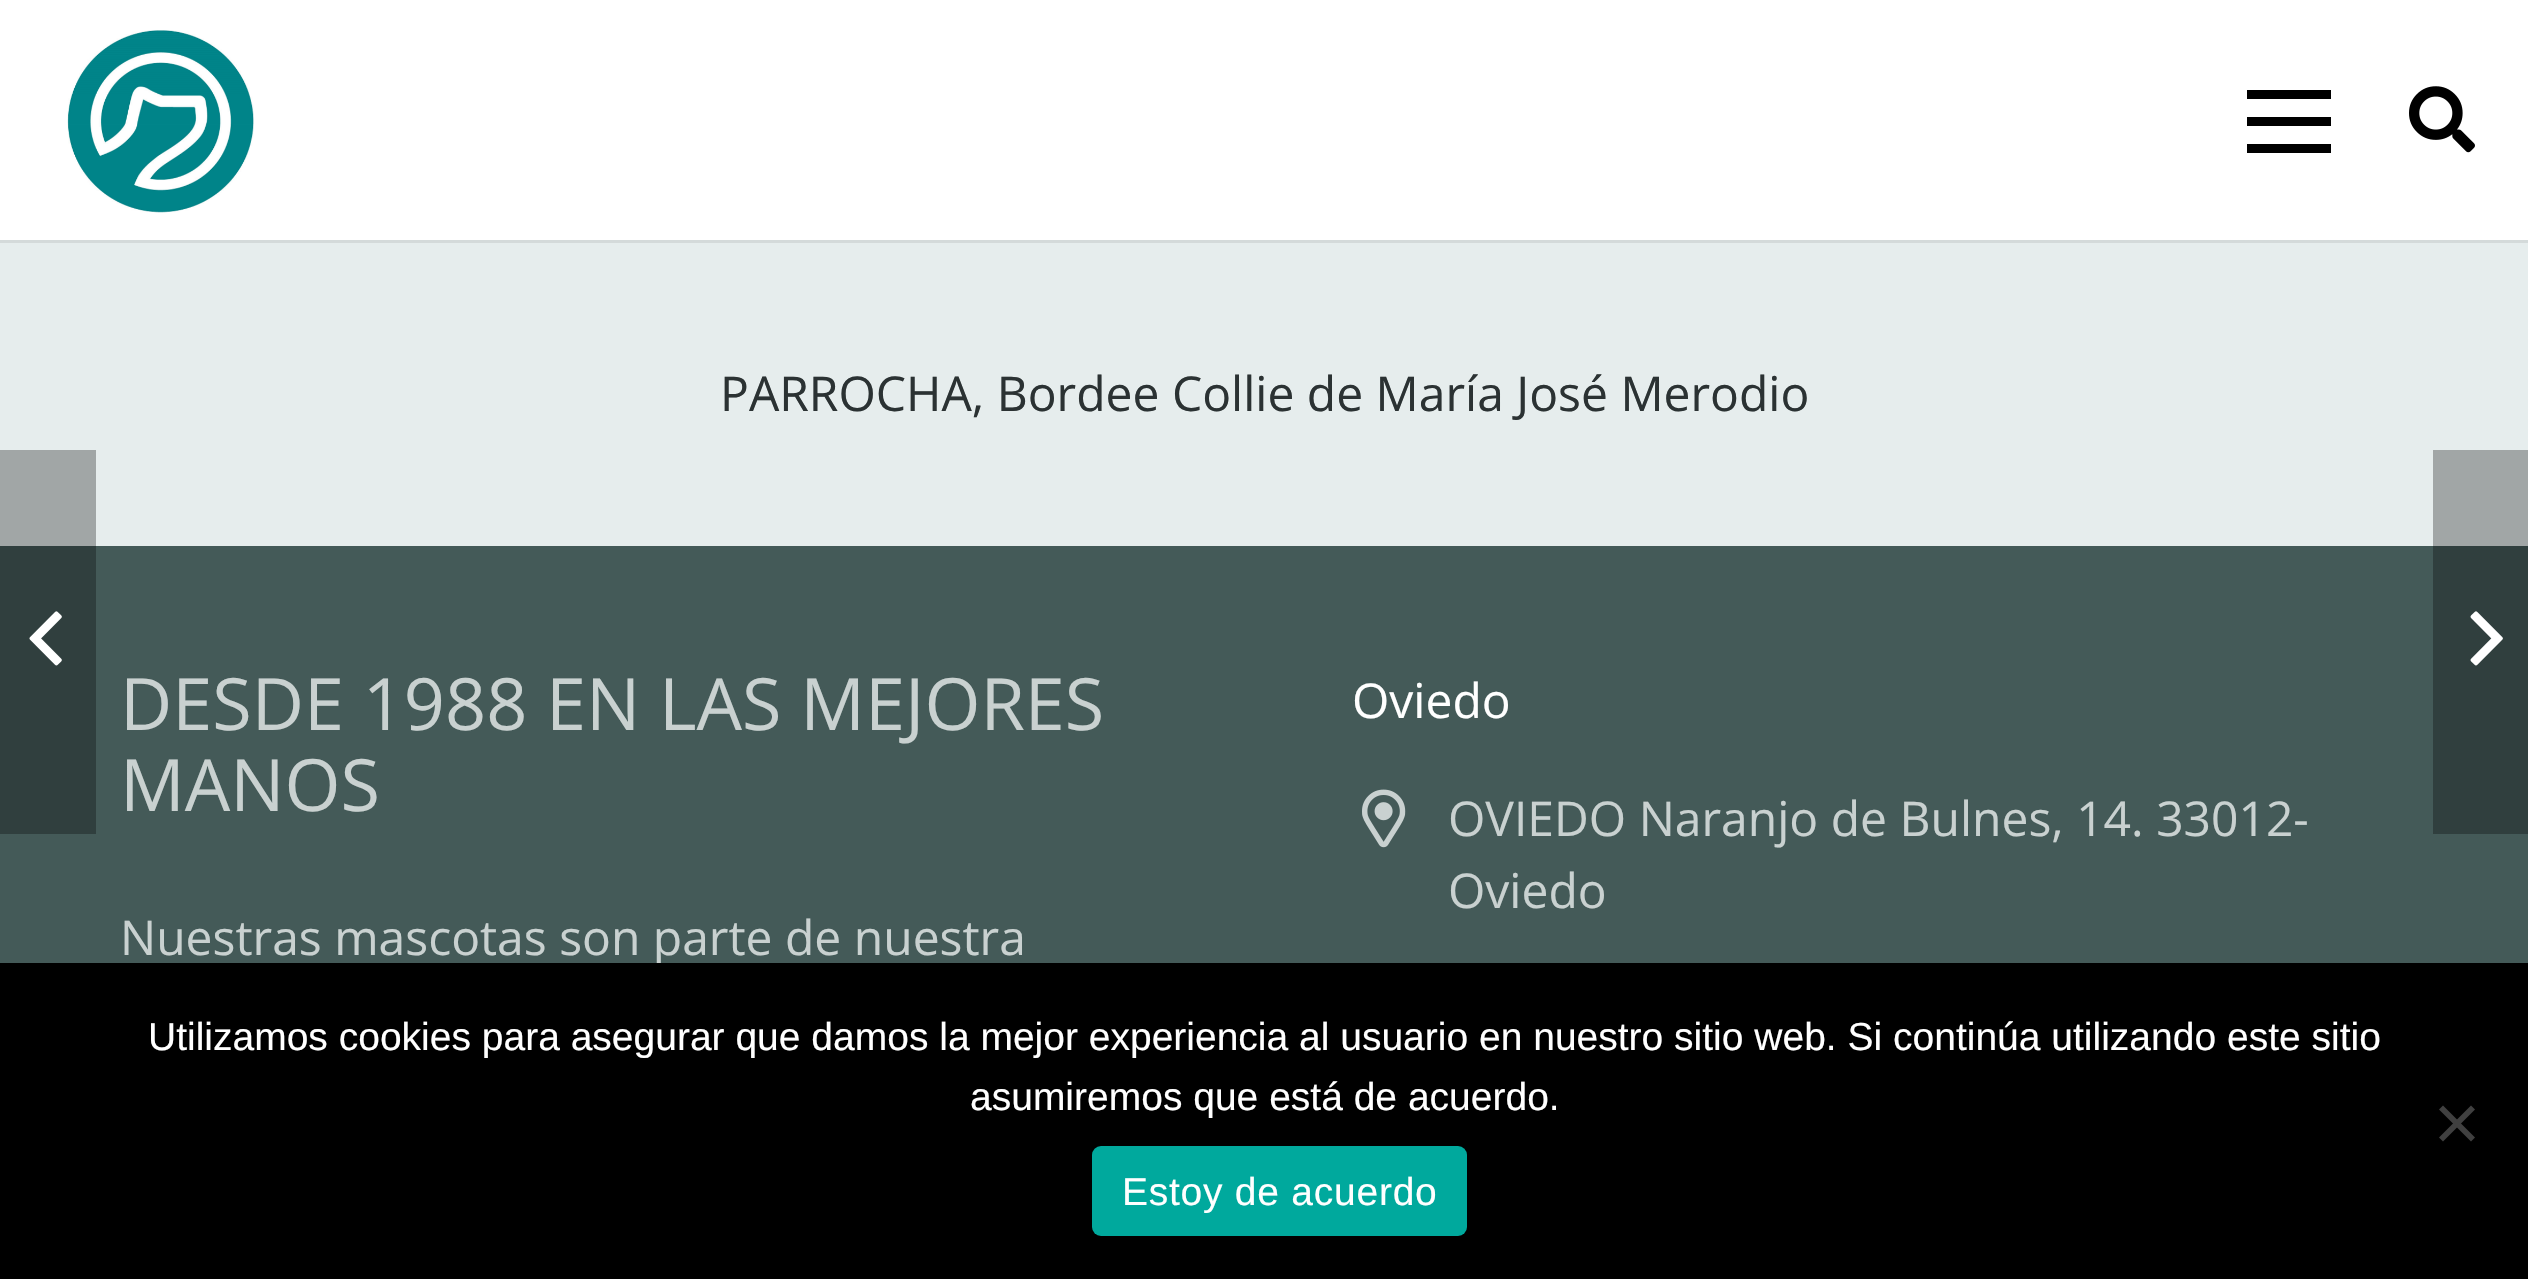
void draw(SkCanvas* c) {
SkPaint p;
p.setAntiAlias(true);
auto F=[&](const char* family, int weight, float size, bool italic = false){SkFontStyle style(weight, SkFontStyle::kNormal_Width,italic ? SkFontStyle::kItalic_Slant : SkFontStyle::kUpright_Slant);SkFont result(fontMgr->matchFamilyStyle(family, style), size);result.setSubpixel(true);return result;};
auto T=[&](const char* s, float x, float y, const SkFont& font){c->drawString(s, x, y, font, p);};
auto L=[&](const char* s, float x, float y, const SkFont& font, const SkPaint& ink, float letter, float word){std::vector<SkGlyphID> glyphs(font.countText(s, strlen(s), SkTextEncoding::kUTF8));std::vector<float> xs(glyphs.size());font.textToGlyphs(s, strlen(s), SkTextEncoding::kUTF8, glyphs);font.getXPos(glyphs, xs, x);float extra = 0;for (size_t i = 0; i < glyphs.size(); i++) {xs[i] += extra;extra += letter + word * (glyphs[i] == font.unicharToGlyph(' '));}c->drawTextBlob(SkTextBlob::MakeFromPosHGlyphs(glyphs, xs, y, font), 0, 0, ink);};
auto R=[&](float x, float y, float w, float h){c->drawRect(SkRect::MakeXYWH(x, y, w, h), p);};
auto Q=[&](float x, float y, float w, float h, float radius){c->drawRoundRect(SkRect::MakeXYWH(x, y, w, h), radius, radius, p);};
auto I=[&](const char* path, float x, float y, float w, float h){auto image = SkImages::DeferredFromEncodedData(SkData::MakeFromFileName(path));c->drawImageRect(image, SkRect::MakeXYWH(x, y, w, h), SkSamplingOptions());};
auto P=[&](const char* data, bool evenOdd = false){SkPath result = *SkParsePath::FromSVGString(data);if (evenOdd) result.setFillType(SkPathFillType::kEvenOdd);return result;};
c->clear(0xffe6eded);
p.setColor(0xffd4dada);
R(0,240,2528,3);
p.setColor(0xffffffff);
R(0,0,2528,240);
I("1.png",67,30,187,183);
p.setColor(0xff000000);
R(2247,117,84,9);
R(2247,90,84,9);
R(2247,144,84,9);
I("2.png",2409,86,66,67);
p.setColor(0xffa1a6a6);
R(2433,450,95,96);
R(0,450,96,96);
auto f1 = F("Open Sans",400,48);
p.setColor(0xff2b3233);
T("PARROCHA, Bordee Collie de María José Merodio",720,411,f1);
p.setColor(0xff445a58);
R(0,546,2528,417);
p.setColor(0xff303f3e);
R(0,546,96,288);
I("3.png",29,611,33,55);
R(2433,546,95,288);
I("4.png",2470,611,33,55);
auto f2 = F("Open Sans",400,72);
p.setColor(0xffc9d1d0);
T("DESDE 1988 EN LAS MEJORES",120,730,f2);
T("MANOS",120,811,f2);
T("Nuestras mascotas son parte de nuestra",120,955,f1);
p.setColor(0xffffffff);
T("Oviedo",1352,718,f1);
I("5.png",1362,789,44,59);
p.setColor(0xffc9d1d0);
T("OVIEDO Naranjo de Bulnes, 14. 33012-",1448,836,f1);
T("Oviedo",1448,908,f1);
p.setColor(0xff000000);
R(0,963,2528,316);
auto f3 = F("Liberation Sans",400,39);
p.setColor(0xffffffff);
T("Utilizamos cookies para asegurar que damos la mejor experiencia al usuario en nuestro sitio web. Si continúa utilizando este sitio",148,1050,f3);
T("asumiremos que está de acuerdo.",970,1110,f3);
p.setColor(0xff404040);
c->drawPath(P("M2471 1105.5l4 4l-32 32l-4-4z"),p);
c->drawPath(P("M2439 1109.5l4-4l32 32l-4 4z"),p);
p.setColor(0xff00a99d);
Q(1092,1146,375,90,9);
p.setColor(0xffffffff);
L("Estoy de acuerdo",1122,1205,f3,p,.75,0);
}
